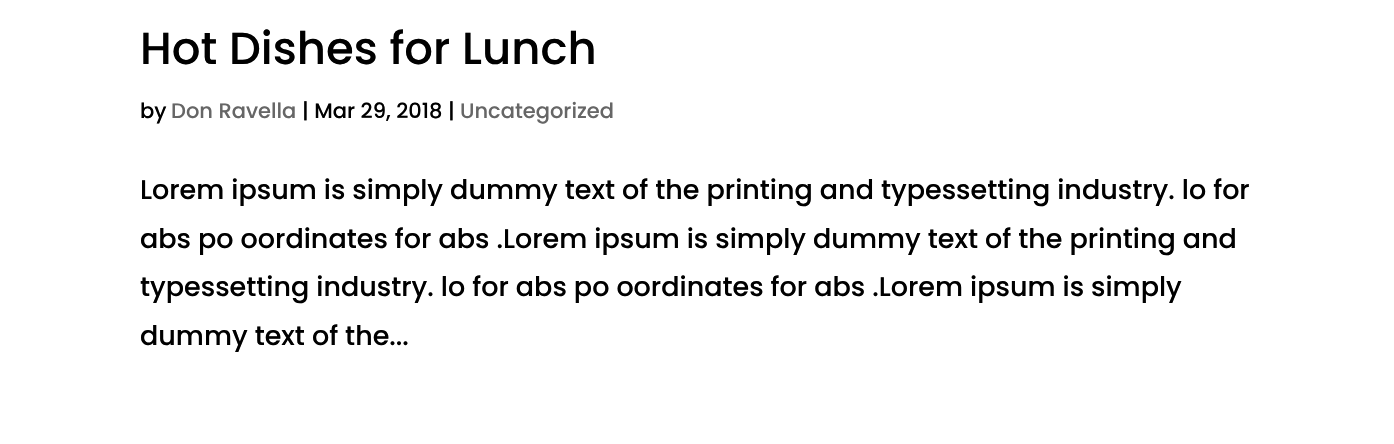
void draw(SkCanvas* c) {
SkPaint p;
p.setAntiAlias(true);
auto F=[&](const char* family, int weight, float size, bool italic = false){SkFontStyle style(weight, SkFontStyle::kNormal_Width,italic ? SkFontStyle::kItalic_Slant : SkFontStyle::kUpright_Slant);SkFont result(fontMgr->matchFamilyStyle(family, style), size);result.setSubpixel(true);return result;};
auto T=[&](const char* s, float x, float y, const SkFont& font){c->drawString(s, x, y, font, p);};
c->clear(0xffffffff);
auto f1 = F("Poppins",500,45);
p.setColor(0xff000000);
T("Hot Dishes for Lunch",140,64,f1);
auto f2 = F("Poppins",500,21);
T("by",140,118,f2);
p.setColor(0xff666666);
T("Don Ravella",171,118,f2);
p.setColor(0xff000000);
T("| Mar 29, 2018 |",302,118,f2);
p.setColor(0xff666666);
T("Uncategorized",460,118,f2);
auto f3 = F("Poppins",500,27);
p.setColor(0xff000000);
T("Lorem ipsum is simply dummy text of the printing and typessetting industry. lo for",140,199,f3);
T("abs po oordinates for abs .Lorem ipsum is simply dummy text of the printing and",140,248,f3);
T("typessetting industry. lo for abs po oordinates for abs .Lorem ipsum is simply",140,296,f3);
T("dummy text of the...",140,345,f3);
}
